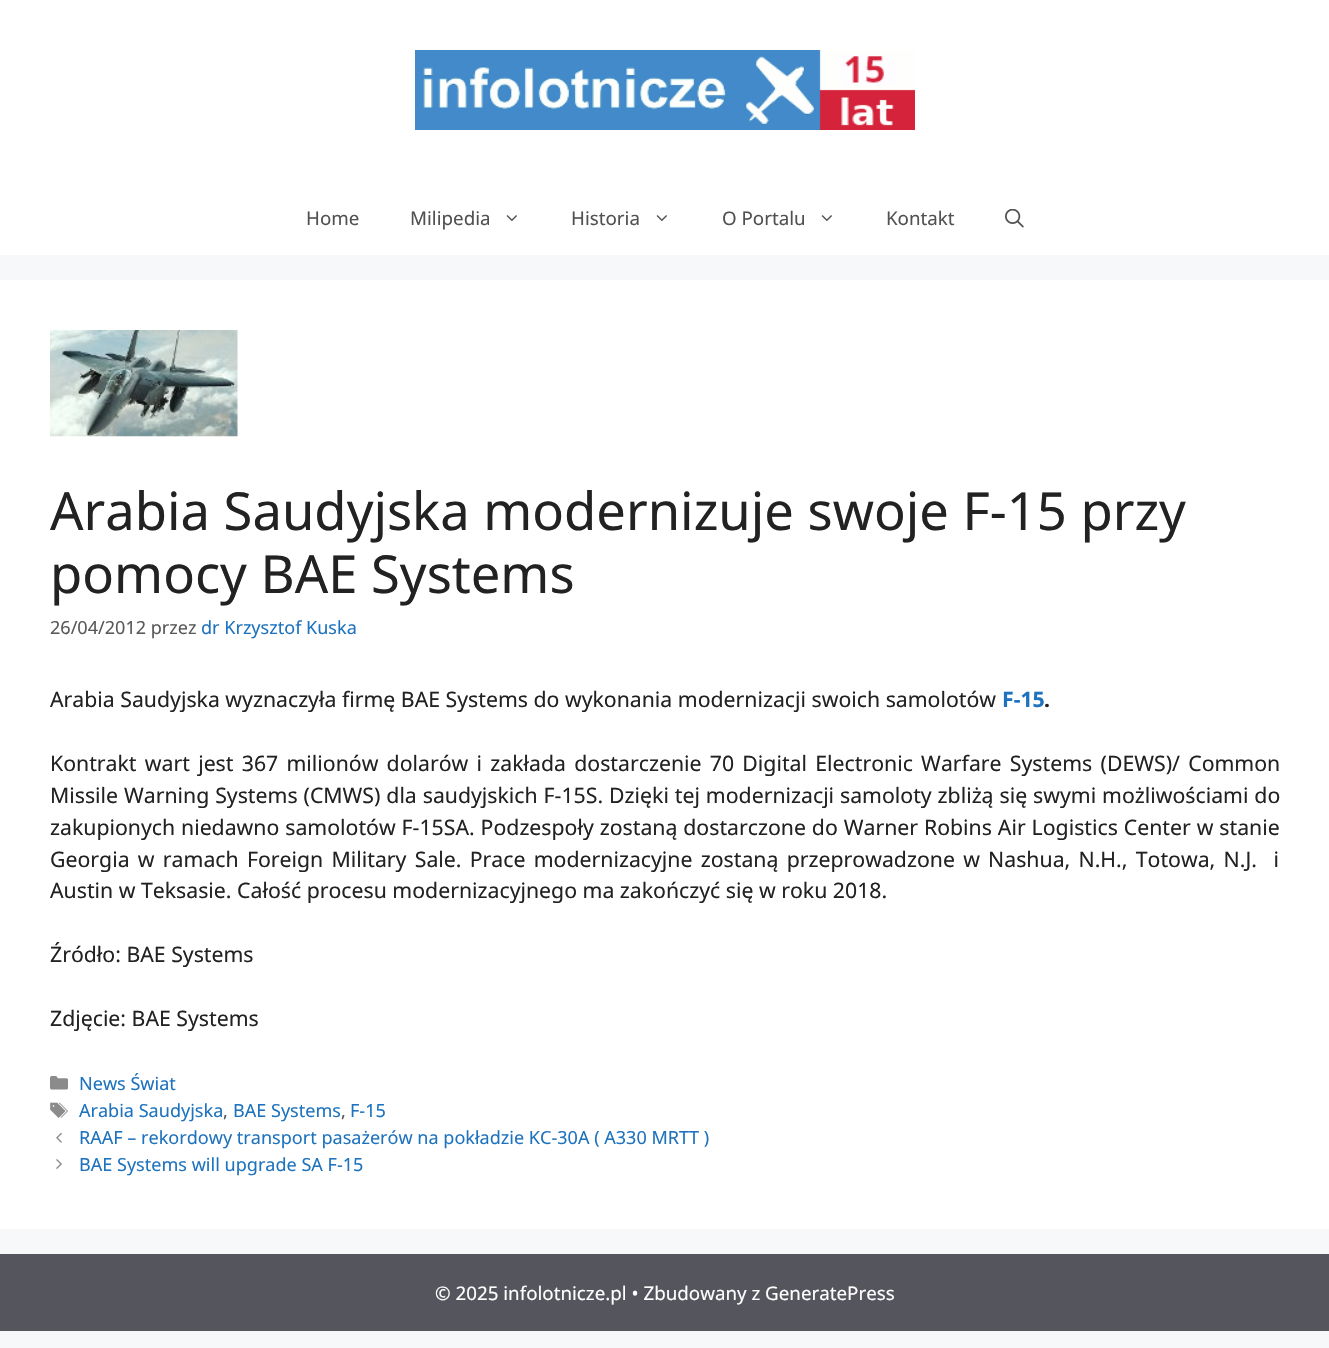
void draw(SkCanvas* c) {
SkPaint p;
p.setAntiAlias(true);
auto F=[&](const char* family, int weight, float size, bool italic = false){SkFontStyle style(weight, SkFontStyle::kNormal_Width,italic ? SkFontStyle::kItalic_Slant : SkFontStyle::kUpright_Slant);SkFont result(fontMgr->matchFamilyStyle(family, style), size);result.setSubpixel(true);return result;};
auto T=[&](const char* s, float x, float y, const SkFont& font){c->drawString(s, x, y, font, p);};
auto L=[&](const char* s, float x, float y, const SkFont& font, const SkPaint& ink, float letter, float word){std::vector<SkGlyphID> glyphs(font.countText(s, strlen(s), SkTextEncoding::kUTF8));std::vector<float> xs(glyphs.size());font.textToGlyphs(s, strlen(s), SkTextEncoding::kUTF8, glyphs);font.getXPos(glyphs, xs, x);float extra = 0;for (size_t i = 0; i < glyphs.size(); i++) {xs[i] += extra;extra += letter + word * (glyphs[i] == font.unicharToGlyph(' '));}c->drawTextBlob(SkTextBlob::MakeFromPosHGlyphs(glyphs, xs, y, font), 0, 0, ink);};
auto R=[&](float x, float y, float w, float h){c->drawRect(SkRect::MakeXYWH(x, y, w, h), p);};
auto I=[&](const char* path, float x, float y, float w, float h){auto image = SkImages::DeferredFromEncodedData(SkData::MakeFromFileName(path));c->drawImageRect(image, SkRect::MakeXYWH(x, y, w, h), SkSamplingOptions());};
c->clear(0xfff7f8f9);
p.setColor(0xffffffff);
R(0,0,1329,255);
I("1.png",415,50,500,80);
auto f1 = F("Noto Sans",400,18.75);
p.setColor(0xff515151);
T("Home",306,225,f1);
T("Milipedia",410,225,f1);
I("2.png",506,215,11,7);
T("Historia",571,225,f1);
I("2.png",656,215,11,7);
T("O Portalu",722,225,f1);
I("2.png",821,215,11,7);
T("Kontakt",886,225,f1);
I("3.png",1005,209,19,19);
p.setColor(0xffffffff);
R(0,280,1329,949);
I("4.png",50,330,188,107);
auto f2 = F("Noto Sans",400,52.5);
p.setColor(0xff222222);
T("Arabia Saudyjska modernizuje swoje F-15 przy",50,530,f2);
T("pomocy BAE Systems",50,593,f2);
auto f3 = F("Noto Sans",400,18.05);
p.setColor(0xff595959);
T("26/04/2012 przez",50,634,f3);
p.setColor(0xff1e73be);
T("dr Krzysztof Kuska",201,634,f3);
auto f4 = F("Noto Sans",400,21.25);
p.setColor(0xff222222);
T("Arabia Saudyjska wyznaczyła firmę BAE Systems do wykonania modernizacji swoich samolotów",50,707,f4);
auto f5 = F("Noto Sans",700,21.25);
p.setColor(0xff1e73be);
T("F-15",1002,707,f5);
p.setColor(0xff222222);
T(".",1044,707,f5);
L("Kontrakt wart jest 367 milionów dolarów i zakłada dostarczenie 70 Digital Electronic Warfare Systems (DEWS)/ Common",50,771,f4,p,0,2.75);
L("Missile Warning Systems (CMWS) dla saudyjskich F-15S. Dzięki tej modernizacji samoloty zbliżą się swymi możliwościami do",50,803,f4,p,0,.4);
L("zakupionych niedawno samolotów F-15SA. Podzespoły zostaną dostarczone do Warner Robins Air Logistics Center w stanie",50,835,f4,p,0,.4);
L("Georgia w ramach Foreign Military Sale. Prace modernizacyjne zostaną przeprowadzone w Nashua, N.H., Totowa, N.J.  i",50,867,f4,p,0,2.75);
T("Austin w Teksasie. Całość procesu modernizacyjnego ma zakończyć się w roku 2018.",50,898,f4);
T("Źródło: BAE Systems",50,962,f4);
T("Zdjęcie: BAE Systems",50,1026,f4);
I("5.png",50,1076,18,14);
p.setColor(0xff1e73be);
T("News Świat",79,1090,f3);
I("6.png",50,1102,18,16);
T("Arabia Saudyjska",79,1117,f3);
p.setColor(0xff595959);
T(",",223,1117,f3);
p.setColor(0xff1e73be);
T("BAE Systems",233,1117,f3);
p.setColor(0xff595959);
T(",",341,1117,f3);
p.setColor(0xff1e73be);
T("F-15",350,1117,f3);
I("7.png",56,1132,6,11);
T("RAAF – rekordowy transport pasażerów na pokładzie KC-30A ( A330 MRTT )",79,1144,f3);
I("8.png",56,1159,6,10);
T("BAE Systems will upgrade SA F-15",79,1171,f3);
p.setColor(0xff55555e);
R(0,1254,1329,77);
p.setColor(0xffffffff);
T("© 2025 infolotnicze.pl • Zbudowany z GeneratePress",435,1300,f1);
}
